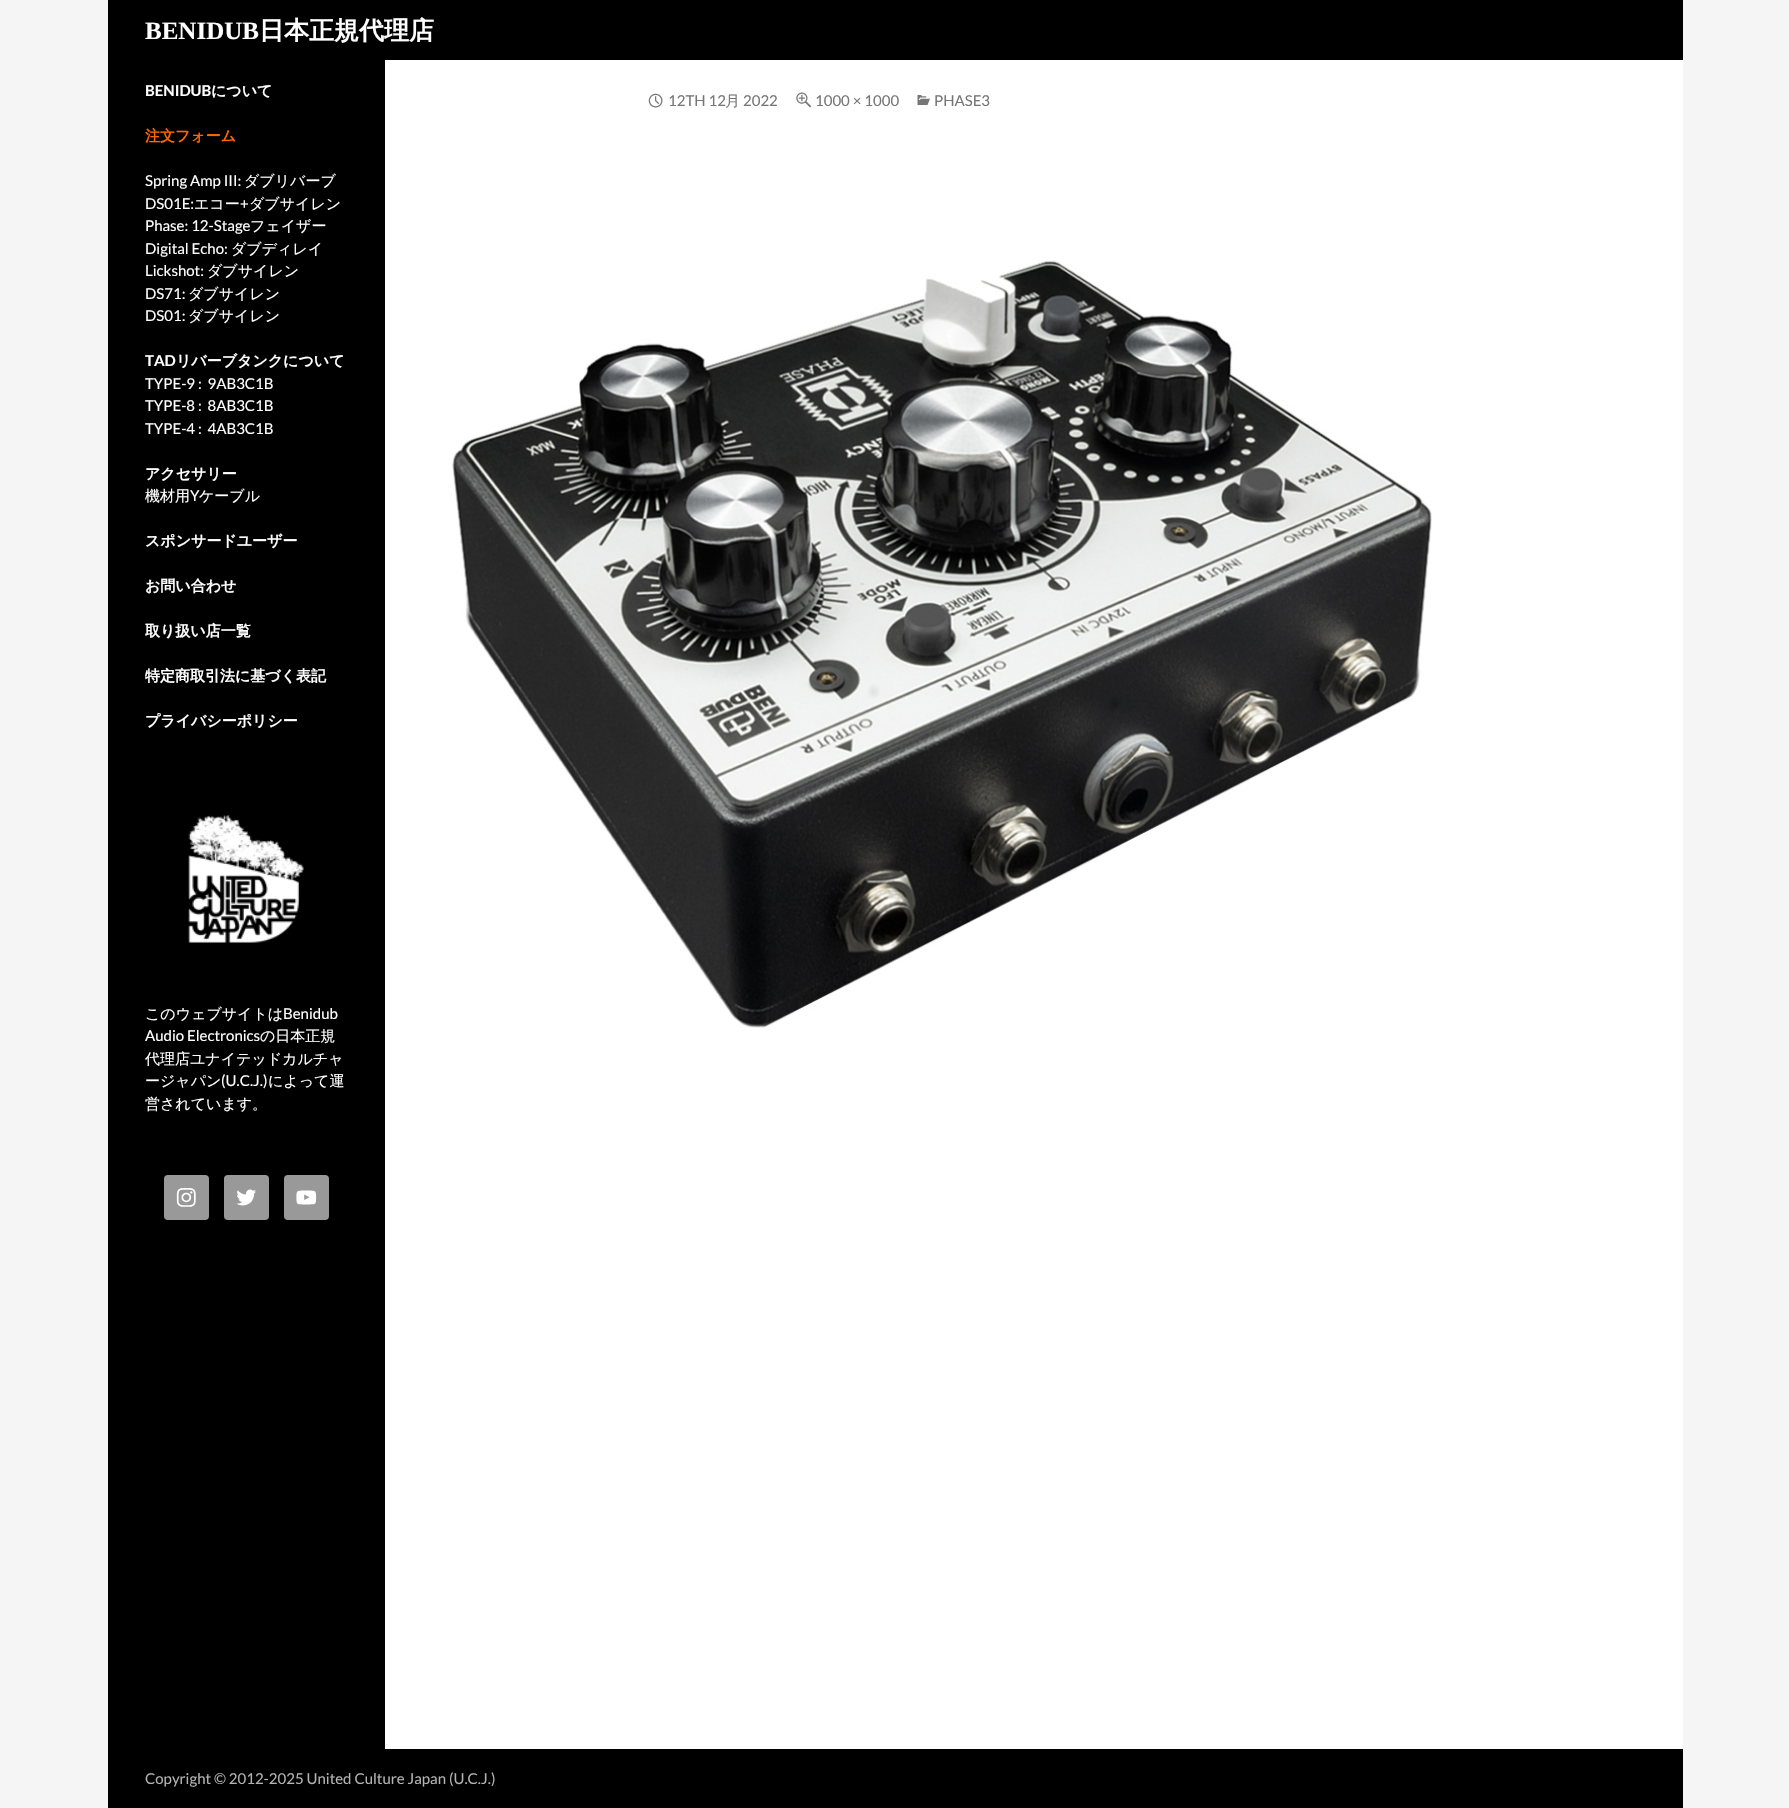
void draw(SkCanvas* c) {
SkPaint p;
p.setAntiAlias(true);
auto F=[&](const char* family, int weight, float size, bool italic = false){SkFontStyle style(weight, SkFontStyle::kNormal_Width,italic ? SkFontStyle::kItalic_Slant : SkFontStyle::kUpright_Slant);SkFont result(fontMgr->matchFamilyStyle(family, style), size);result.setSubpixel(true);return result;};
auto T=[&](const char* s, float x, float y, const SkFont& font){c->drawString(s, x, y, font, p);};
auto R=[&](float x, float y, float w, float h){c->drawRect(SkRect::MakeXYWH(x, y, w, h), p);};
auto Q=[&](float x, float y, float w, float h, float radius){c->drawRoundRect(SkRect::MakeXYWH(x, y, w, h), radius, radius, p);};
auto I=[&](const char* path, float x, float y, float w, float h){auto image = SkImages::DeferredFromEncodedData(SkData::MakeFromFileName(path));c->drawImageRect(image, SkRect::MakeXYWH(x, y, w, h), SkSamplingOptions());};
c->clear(0xfff5f5f5);
p.setColor(0xffffffff);
R(385,60,1298,1689);
p.setColor(0xff000000);
R(108,0,1575,60);
auto f1 = F("Liberation Serif",700,25);
p.setColor(0xffffffff);
T("BENIDUB",145,39,f1);
auto f2 = F("WenQuanYi Zen Hei",700,25);
T("日本正規代理店",259,39,f2);
p.setColor(0xff000000);
R(108,60,277,1689);
auto f3 = F("Lato",700,15);
p.setColor(0xffffffff);
T("BENIDUB",145,96,f3);
auto f4 = F("WenQuanYi Zen Hei",700,15);
T("について",211,96,f4);
p.setColor(0xffff6600);
T("注文フォーム",145,141,f4);
auto f5 = F("Lato",400,15);
p.setColor(0xffffffff);
T("Spring Amp III:",145,186,f5);
auto f6 = F("WenQuanYi Zen Hei",500,15);
T("ダブリバーブ",244,186,f6);
T("DS01E:",145,209,f5);
T("エコー",194,209,f6);
T("+",240,209,f5);
T("ダブサイレン",249,209,f6);
T("Phase: 12-Stage",145,231,f5);
T("フェイザー",250,231,f6);
T("Digital Echo:",145,254,f5);
T("ダブディレイ",231,254,f6);
T("Lickshot:",145,276,f5);
T("ダブサイレン",207,276,f6);
T("DS71:",145,299,f5);
T("ダブサイレン",188,299,f6);
T("DS01:",145,321,f5);
T("ダブサイレン",188,321,f6);
T("TAD",145,366,f3);
T("リバーブタンクについて",176,366,f4);
T("TYPE-9 :  9AB3C1B",145,389,f5);
T("TYPE-8 :  8AB3C1B",145,411,f5);
T("TYPE-4 :  4AB3C1B",145,434,f5);
T("アクセサリー",145,479,f4);
T("機材用",145,501,f6);
T("Y",190,501,f5);
T("ケーブル",199,501,f6);
T("スポンサードユーザー",145,546,f4);
T("お問い合わせ",145,591,f4);
T("取り扱い店一覧",145,636,f4);
T("特定商取引法に基づく表記",145,681,f4);
T("プライバシーポリシー",145,726,f4);
I("1.png",188,815,116,128);
T("このウェブサイトは",145,1019,f6);
T("Benidub",283,1019,f5);
T("Audio Electronics",145,1041,f5);
T("の日本正規",260,1041,f6);
T("代理店ユナイテッドカルチャ",145,1064,f6);
T("ージャパン",145,1086,f6);
T("(U.C.J.)",221,1086,f5);
T("によって運",268,1086,f6);
T("営されています。",145,1109,f6);
p.setColor(0xff999999);
Q(164,1175,45,45,4);
I("2.png",176,1188,20,19);
Q(224,1175,45,45,4);
I("3.png",236,1189,20,17);
Q(284,1175,45,45,4);
I("4.png",296,1190,21,15);
I("5.png",648,93,15,15);
p.setColor(0xff767676);
T("12TH 12",668,106,f5);
T("月",725,106,f6);
T("2022",743,106,f5);
I("6.png",796,92,16,16);
T("1000 × 1000",815,106,f5);
I("7.png",917,95,13,10);
T("PHASE3",934,106,f5);
I("8.png",452,260,980,768);
p.setColor(0xff000000);
R(108,1749,1575,59);
p.setColor(0xffb3b3b3);
T("Copyright © 2012-2025 United Culture Japan (U.C.J.)",145,1784,f5);
}
